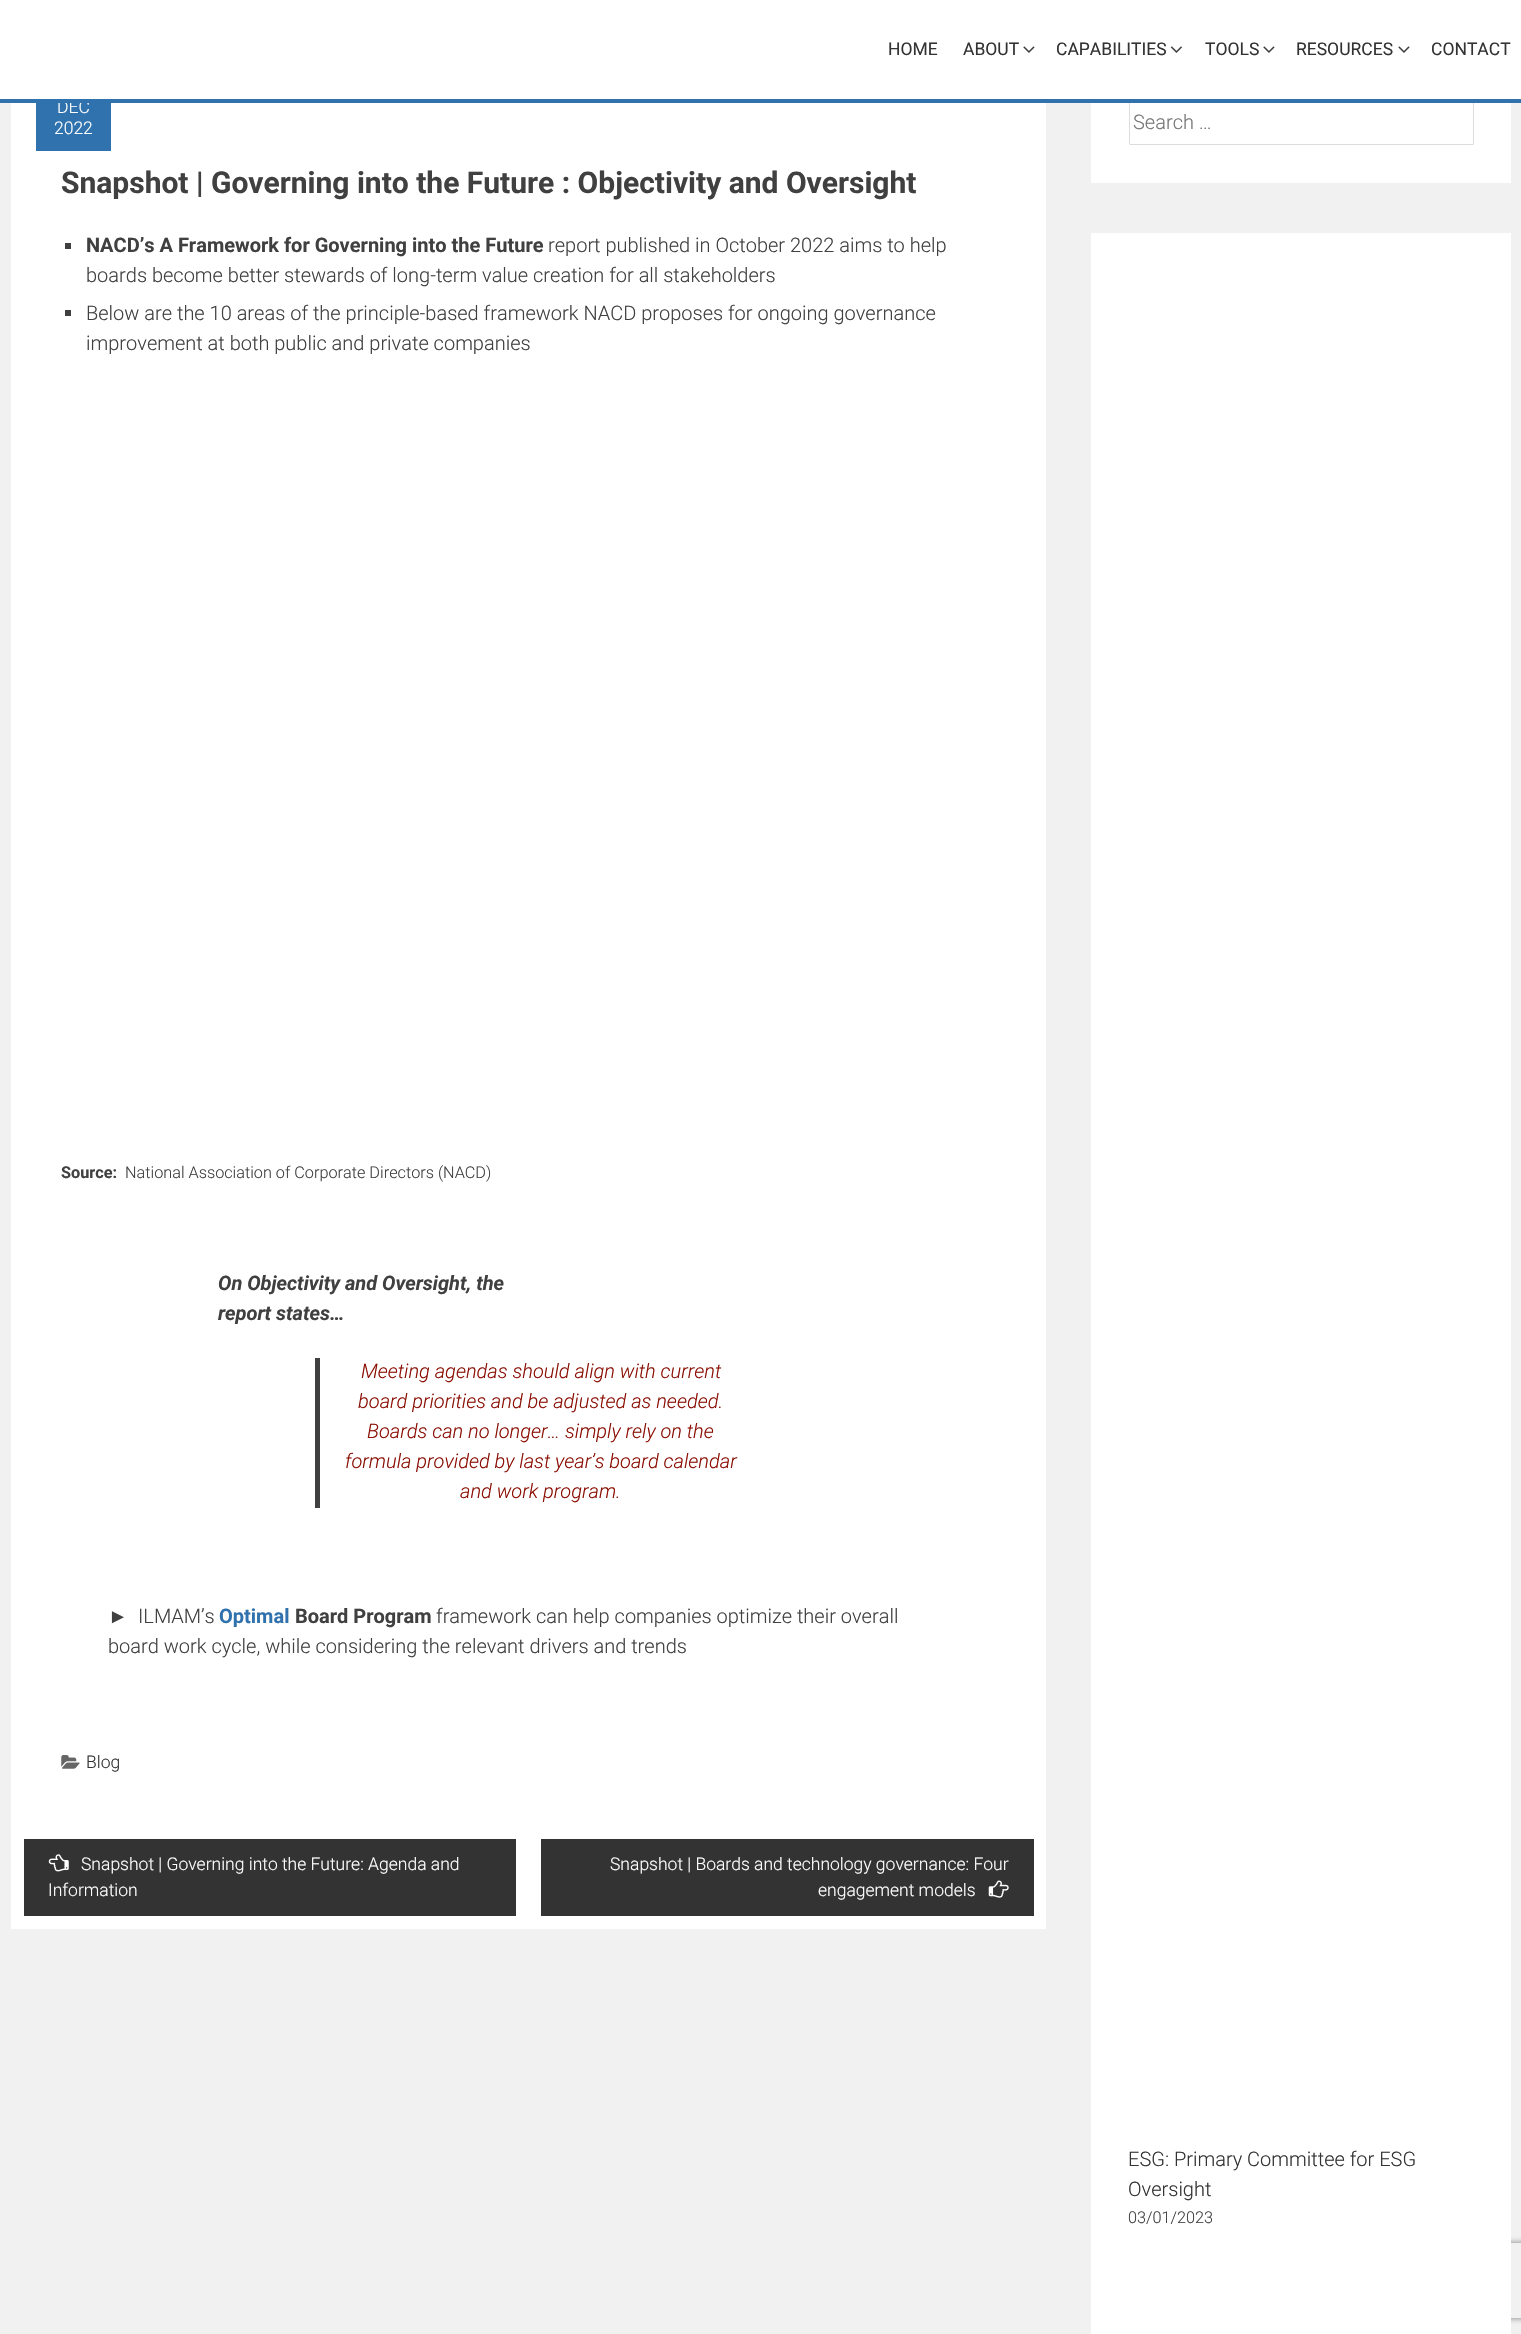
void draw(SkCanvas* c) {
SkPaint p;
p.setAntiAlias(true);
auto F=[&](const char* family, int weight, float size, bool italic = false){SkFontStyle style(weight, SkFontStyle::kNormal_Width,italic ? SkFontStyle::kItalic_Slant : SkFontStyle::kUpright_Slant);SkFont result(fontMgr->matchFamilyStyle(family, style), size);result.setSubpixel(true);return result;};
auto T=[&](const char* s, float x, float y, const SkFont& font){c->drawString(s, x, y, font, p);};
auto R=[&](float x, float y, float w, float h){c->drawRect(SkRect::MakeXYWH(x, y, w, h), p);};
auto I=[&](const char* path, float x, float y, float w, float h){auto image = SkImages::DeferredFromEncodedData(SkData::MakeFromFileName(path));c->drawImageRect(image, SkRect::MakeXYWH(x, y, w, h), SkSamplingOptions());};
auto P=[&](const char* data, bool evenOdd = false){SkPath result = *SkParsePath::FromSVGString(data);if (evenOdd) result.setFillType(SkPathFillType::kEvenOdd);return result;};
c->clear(0xfff1f1f1);
p.setColor(0xffffffff);
R(0,0,1521,99);
R(11,103,1035,1826);
p.setColor(0xff3072ae);
R(36,103,75,48);
auto f1 = F("Roboto",300,17.5);
p.setColor(0xffffffff);
T("DEC",57,113,f1);
R(1091,103,420,80);
p.setStroke(true);
p.setStrokeWidth(1);
p.setColor(0xffdddddd);
c->drawRoundRect(SkRect::MakeXYWH(1129.5,100.5,344,44),.5,.5,p);
p.setStroke(false);
p.setColor(0xff3072ae);
R(0,99,1521,4);
auto f2 = F("Roboto",400,17.5);
p.setColor(0xff333333);
T("HOME",888,55,f2);
T("ABOUT",963,55,f2);
I("1.png",1023,46,12,7);
T("CAPABILITIES",1056,55,f2);
I("2.png",1170,46,12,7);
T("TOOLS",1205,55,f2);
I("1.png",1263,46,12,7);
T("RESOURCES",1296,55,f2);
I("1.png",1398,46,12,7);
T("CONTACT",1431,55,f2);
p.setColor(0xffffffff);
T("2022",54,134,f1);
auto f3 = F("Roboto",700,30);
p.setColor(0xff404040);
T("Snapshot | Governing into the Future : Objectivity and Oversight",61,193,f3);
R(65,243,6,6);
auto f4 = F("Roboto",700,20);
T("NACD’s A Framework for Governing into the Future",86,252,f4);
auto f5 = F("Roboto",300,20);
T("report published in October 2022 aims to help",548,252,f5);
T("boards become better stewards of long-term value creation for all stakeholders",86,282,f5);
R(65,310,6,6);
T("Below are the 10 areas of the principle-based framework NACD proposes for ongoing governance",86,320,f5);
T("improvement at both public and private companies",86,350,f5);
auto f6 = F("Roboto",700,16.25);
T("Source:",61,1178,f6);
auto f7 = F("Roboto",300,16.25);
T("National Association of Corporate Directors (NACD)",125,1178,f7);
auto f8 = F("Roboto",700,20,true);
T("On Objectivity and Oversight, the",218,1290,f8);
T("report states…",218,1320,f8);
R(315,1358,5,150);
auto f9 = F("Roboto",300,20,true);
p.setColor(0xff8b0f04);
T("Meeting agendas should align with current",361,1378,f9);
T("board priorities and be adjusted as needed.",358,1408,f9);
T("Boards can no longer… simply rely on the",367,1438,f9);
T("formula provided by last year’s board calendar",345,1468,f9);
T("and work program.",460,1498,f9);
auto f10 = F("Liberation Sans",400,20);
p.setColor(0xff404040);
T("►",108,1623,f10);
T("ILMAM’s",138,1623,f5);
p.setColor(0xff3072ae);
T("Optimal",219,1623,f4);
p.setColor(0xff404040);
T("Board Program",295,1623,f4);
T("framework can help companies optimize their overall",436,1623,f5);
T("board work cycle, while considering the relevant drivers and trends",108,1653,f5);
I("3.png",61,1755,19,14);
p.setColor(0xff333333);
T("Blog",86,1768,f1);
R(24,1839,492,77);
I("4.png",48,1854,21,18);
p.setColor(0xffffffff);
T("Snapshot | Governing into the Future: Agenda and",81,1870,f1);
T("Information",48,1896,f1);
p.setColor(0xff333333);
R(541,1839,493,77);
p.setColor(0xffffffff);
T("Snapshot | Boards and technology governance: Four",610,1870,f1);
T("engagement models",818,1896,f1);
I("5.png",988,1880,21,18);
p.setColor(0xff757575);
T("Search …",1133,129,f5);
c->save();
c->clipPath(P("M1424 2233h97v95h-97zm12.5 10h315c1.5 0 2.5 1 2.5 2.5v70c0 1.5-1 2.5-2.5 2.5h-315c-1.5 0-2.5-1-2.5-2.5v-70c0-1.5 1-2.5 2.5-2.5z",true),true);
p.setColor(0xff808080);
p.setMaskFilter(SkMaskFilter::MakeBlur(kNormal_SkBlurStyle, 3));
c->drawRoundRect(SkRect::MakeXYWH(1434,2243,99,75),2.5,2.5,p);
p.setMaskFilter(nullptr);
c->restore();
p.setColor(0xffffffff);
R(1091,233,420,2101);
p.setColor(0xff333333);
T("ESG: Primary Committee for ESG",1128,2166,f5);
T("Oversight",1128,2196,f5);
p.setColor(0xff404040);
T("03/01/2023",1128,2223,f7);
}
